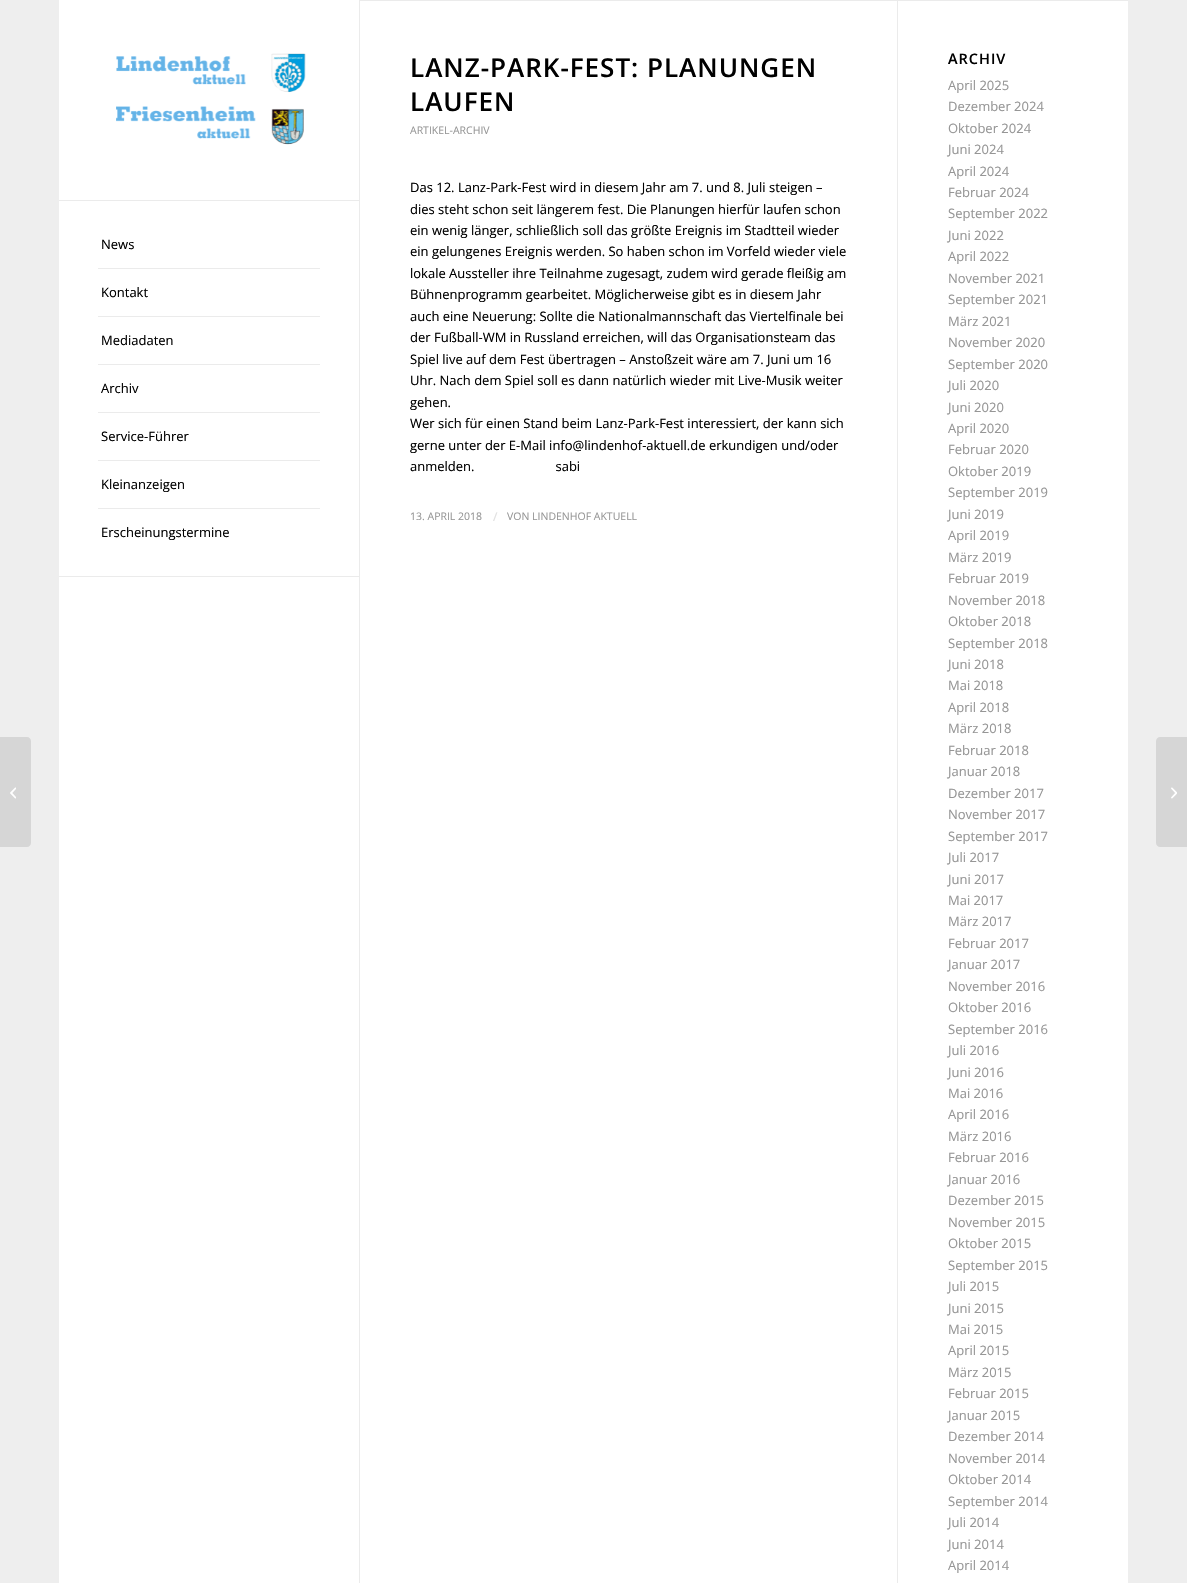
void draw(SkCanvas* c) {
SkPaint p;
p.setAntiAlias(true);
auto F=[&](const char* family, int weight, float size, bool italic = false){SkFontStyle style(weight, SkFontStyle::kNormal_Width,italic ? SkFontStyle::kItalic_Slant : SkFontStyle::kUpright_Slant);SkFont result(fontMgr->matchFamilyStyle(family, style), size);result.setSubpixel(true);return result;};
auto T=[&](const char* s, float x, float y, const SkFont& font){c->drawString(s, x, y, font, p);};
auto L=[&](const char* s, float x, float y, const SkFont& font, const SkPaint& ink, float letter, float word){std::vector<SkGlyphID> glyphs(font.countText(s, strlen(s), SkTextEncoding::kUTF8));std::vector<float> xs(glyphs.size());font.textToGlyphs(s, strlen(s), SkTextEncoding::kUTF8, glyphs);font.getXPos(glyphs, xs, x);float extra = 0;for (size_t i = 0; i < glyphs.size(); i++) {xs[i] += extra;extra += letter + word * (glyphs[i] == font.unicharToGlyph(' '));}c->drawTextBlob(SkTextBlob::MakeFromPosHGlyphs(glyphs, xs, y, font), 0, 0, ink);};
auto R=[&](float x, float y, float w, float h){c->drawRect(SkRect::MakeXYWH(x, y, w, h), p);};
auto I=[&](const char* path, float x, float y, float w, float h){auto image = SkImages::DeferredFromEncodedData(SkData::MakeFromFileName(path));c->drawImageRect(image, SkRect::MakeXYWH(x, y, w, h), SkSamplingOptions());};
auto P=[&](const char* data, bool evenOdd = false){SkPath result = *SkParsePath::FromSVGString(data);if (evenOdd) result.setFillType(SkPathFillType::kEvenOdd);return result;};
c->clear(0xffeeeeee);
p.setColor(0xffffffff);
R(59,0,1069,1583);
p.setColor(0xffebebeb);
R(59,576,300,1);
R(59,200,300,1);
I("1.png",116,53,190,92);
R(98,268,222,1);
auto f1 = F("Open Sans",400,13);
p.setColor(0xff000000);
T("News",101,249,f1);
p.setColor(0xffebebeb);
R(98,316,222,1);
p.setColor(0xff000000);
T("Kontakt",101,297,f1);
p.setColor(0xffebebeb);
R(98,364,222,1);
p.setColor(0xff000000);
T("Mediadaten",101,345,f1);
p.setColor(0xffebebeb);
R(98,412,222,1);
p.setColor(0xff000000);
T("Archiv",101,393,f1);
p.setColor(0xffebebeb);
R(98,460,222,1);
p.setColor(0xff000000);
T("Service-Führer",101,441,f1);
p.setColor(0xffebebeb);
R(98,508,222,1);
p.setColor(0xff000000);
T("Kleinanzeigen",101,489,f1);
T("Erscheinungstermine",101,537,f1);
p.setColor(0xffebebeb);
R(359,0,1,1583);
R(360,0,768,1);
auto f2 = F("Open Sans",600,26);
p.setColor(0xff000000);
L("LANZ-PARK-FEST: PLANUNGEN",410,77,f2,p,1,0);
L("LAUFEN",410,111,f2,p,1,0);
auto f3 = F("Open Sans",400,10.5);
p.setColor(0xff969696);
T("ARTIKEL-ARCHIV",410,134,f3);
p.setColor(0xff000000);
T("Das 12. Lanz-Park-Fest wird in diesem Jahr am 7. und 8. Juli steigen –",410,192,f1);
T("dies steht schon seit längerem fest. Die Planungen hierfür laufen schon",410,214,f1);
T("ein wenig länger, schließlich soll das größte Ereignis im Stadtteil wieder",410,235,f1);
T("ein gelungenes Ereignis werden. So haben schon im Vorfeld wieder viele",410,256,f1);
T("lokale Aussteller ihre Teilnahme zugesagt, zudem wird gerade fleißig am",410,278,f1);
T("Bühnenprogramm gearbeitet. Möglicherweise gibt es in diesem Jahr",410,299,f1);
T("auch eine Neuerung: Sollte die Nationalmannschaft das Viertelfinale bei",410,321,f1);
T("der Fußball-WM in Russland erreichen, will das Organisationsteam das",410,342,f1);
T("Spiel live auf dem Fest übertragen – Anstoßzeit wäre am 7. Juni um 16",410,364,f1);
T("Uhr. Nach dem Spiel soll es dann natürlich wieder mit Live-Musik weiter",410,385,f1);
T("gehen.",410,407,f1);
T("Wer sich für einen Stand beim Lanz-Park-Fest interessiert, der kann sich",410,428,f1);
T("gerne unter der E-Mail info@lindenhof-aktuell.de erkundigen und/oder",410,450,f1);
T("anmelden.                        sabi",410,471,f1);
p.setColor(0xff969696);
T("13. APRIL 2018",410,520,f3);
auto f4 = F("Open Sans",400,12);
p.setColor(0xffe0e0e0);
T("/",493,521,f4);
p.setColor(0xff969696);
T("VON LINDENHOF AKTUELL",507,520,f3);
p.setColor(0xffebebeb);
R(897,1,1,1582);
auto f5 = F("Open Sans",600,14.5);
p.setColor(0xff000000);
L("ARCHIV",948,64,f5,p,1,0);
p.setColor(0xff969696);
T("April 2025",948,90,f1);
T("Dezember 2024",948,111,f1);
T("Oktober 2024",948,133,f1);
T("Juni 2024",948,154,f1);
T("April 2024",948,176,f1);
T("Februar 2024",948,197,f1);
T("September 2022",948,218,f1);
T("Juni 2022",948,240,f1);
T("April 2022",948,261,f1);
T("November 2021",948,283,f1);
T("September 2021",948,304,f1);
T("März 2021",948,326,f1);
T("November 2020",948,347,f1);
T("September 2020",948,369,f1);
T("Juli 2020",948,390,f1);
T("Juni 2020",948,412,f1);
T("April 2020",948,433,f1);
T("Februar 2020",948,454,f1);
T("Oktober 2019",948,476,f1);
T("September 2019",948,497,f1);
T("Juni 2019",948,519,f1);
T("April 2019",948,540,f1);
T("März 2019",948,562,f1);
T("Februar 2019",948,583,f1);
T("November 2018",948,605,f1);
T("Oktober 2018",948,626,f1);
T("September 2018",948,648,f1);
T("Juni 2018",948,669,f1);
T("Mai 2018",948,690,f1);
T("April 2018",948,712,f1);
T("März 2018",948,733,f1);
T("Februar 2018",948,755,f1);
T("Januar 2018",948,776,f1);
T("Dezember 2017",948,798,f1);
T("November 2017",948,819,f1);
T("September 2017",948,841,f1);
T("Juli 2017",948,862,f1);
T("Juni 2017",948,884,f1);
T("Mai 2017",948,905,f1);
T("März 2017",948,926,f1);
T("Februar 2017",948,948,f1);
T("Januar 2017",948,969,f1);
T("November 2016",948,991,f1);
T("Oktober 2016",948,1012,f1);
T("September 2016",948,1034,f1);
T("Juli 2016",948,1055,f1);
T("Juni 2016",948,1077,f1);
T("Mai 2016",948,1098,f1);
T("April 2016",948,1119,f1);
T("März 2016",948,1141,f1);
T("Februar 2016",948,1162,f1);
T("Januar 2016",948,1184,f1);
T("Dezember 2015",948,1205,f1);
T("November 2015",948,1227,f1);
T("Oktober 2015",948,1248,f1);
T("September 2015",948,1270,f1);
T("Juli 2015",948,1291,f1);
T("Juni 2015",948,1313,f1);
T("Mai 2015",948,1334,f1);
T("April 2015",948,1355,f1);
T("März 2015",948,1377,f1);
T("Februar 2015",948,1398,f1);
T("Januar 2015",948,1420,f1);
T("Dezember 2014",948,1441,f1);
T("November 2014",948,1463,f1);
T("Oktober 2014",948,1484,f1);
T("September 2014",948,1506,f1);
T("Juli 2014",948,1527,f1);
T("Juni 2014",948,1549,f1);
T("April 2014",948,1570,f1);
p.setColor(0xffd6d6d6);
c->drawPath(P("M0 737h27c2 0 4 2 4 4v102c0 2-2 4-4 4h-27z"),p);
I("2.png",10,787,6,12);
c->drawPath(P("M1160 737h27v110h-27c-2 0-4-2-4-4v-102c0-2 2-4 4-4z"),p);
I("3.png",1171,787,6,12);
}
